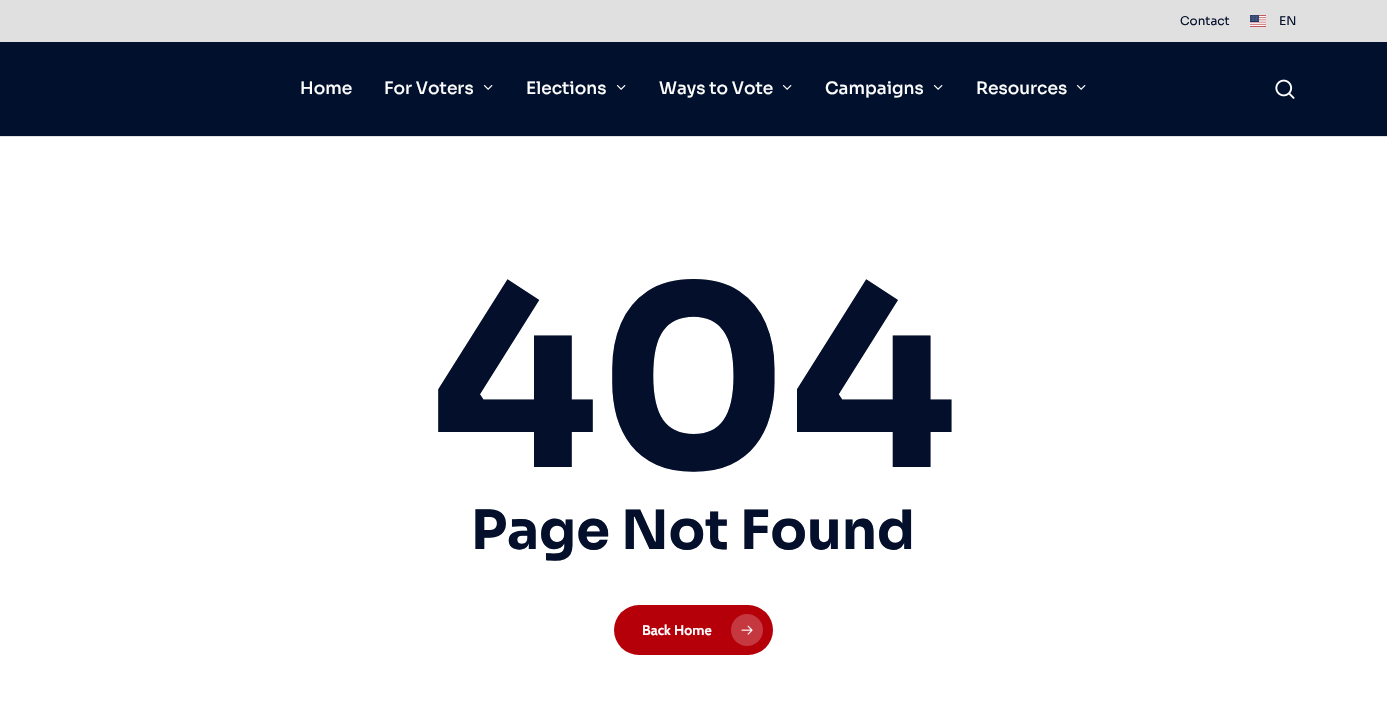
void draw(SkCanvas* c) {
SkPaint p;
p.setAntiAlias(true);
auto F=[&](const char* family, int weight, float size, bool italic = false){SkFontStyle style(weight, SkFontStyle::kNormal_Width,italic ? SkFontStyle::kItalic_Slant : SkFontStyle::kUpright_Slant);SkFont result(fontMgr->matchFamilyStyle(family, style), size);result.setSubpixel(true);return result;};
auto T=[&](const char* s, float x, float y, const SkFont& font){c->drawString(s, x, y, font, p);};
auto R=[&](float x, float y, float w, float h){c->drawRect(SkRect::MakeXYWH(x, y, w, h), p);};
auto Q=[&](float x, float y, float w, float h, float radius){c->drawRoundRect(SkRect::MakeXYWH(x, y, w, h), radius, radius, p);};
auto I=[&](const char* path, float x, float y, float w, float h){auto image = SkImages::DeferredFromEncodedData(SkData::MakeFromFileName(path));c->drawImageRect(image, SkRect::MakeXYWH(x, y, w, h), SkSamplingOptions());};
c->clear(0xffffffff);
p.setColor(0xffe0e0e0);
R(0,0,1387,42);
auto f1 = F("Sora",400,12);
p.setColor(0xff04102b);
T("Contact",1180,25,f1);
I("1.png",1250,15,16,12);
T("EN",1279,25,f1);
p.setColor(0xffe0e0e0);
R(0,136,1387,1);
p.setColor(0xff01112d);
R(0,42,1387,94);
auto f2 = F("Sora",500,17);
p.setColor(0xffffffff);
T("Home",300,94,f2);
T("For Voters",384,94,f2);
I("2.png",483,85,10,5);
T("Elections",526,94,f2);
I("2.png",616,85,10,5);
T("Ways to Vote",659,94,f2);
I("2.png",782,85,10,5);
T("Campaigns",825,94,f2);
I("2.png",933,85,10,5);
T("Resources",976,94,f2);
I("2.png",1076,85,10,5);
I("3.png",1275,79,20,20);
auto f3 = F("Sora",700,250);
p.setColor(0xff04102b);
T("404",430,467,f3);
auto f4 = F("Sora",700,54);
T("Page Not Found",471,549,f4);
p.setColor(0xffb50009);
Q(614,605,159,50,25);
auto f5 = F("Cabin",700,14);
p.setColor(0xffffffff);
T("Back Home",642,635,f5);
p.setColor(0xffc5383f);
c->drawCircle(747,630,16,p);
I("4.png",741,625,12,10);
}
